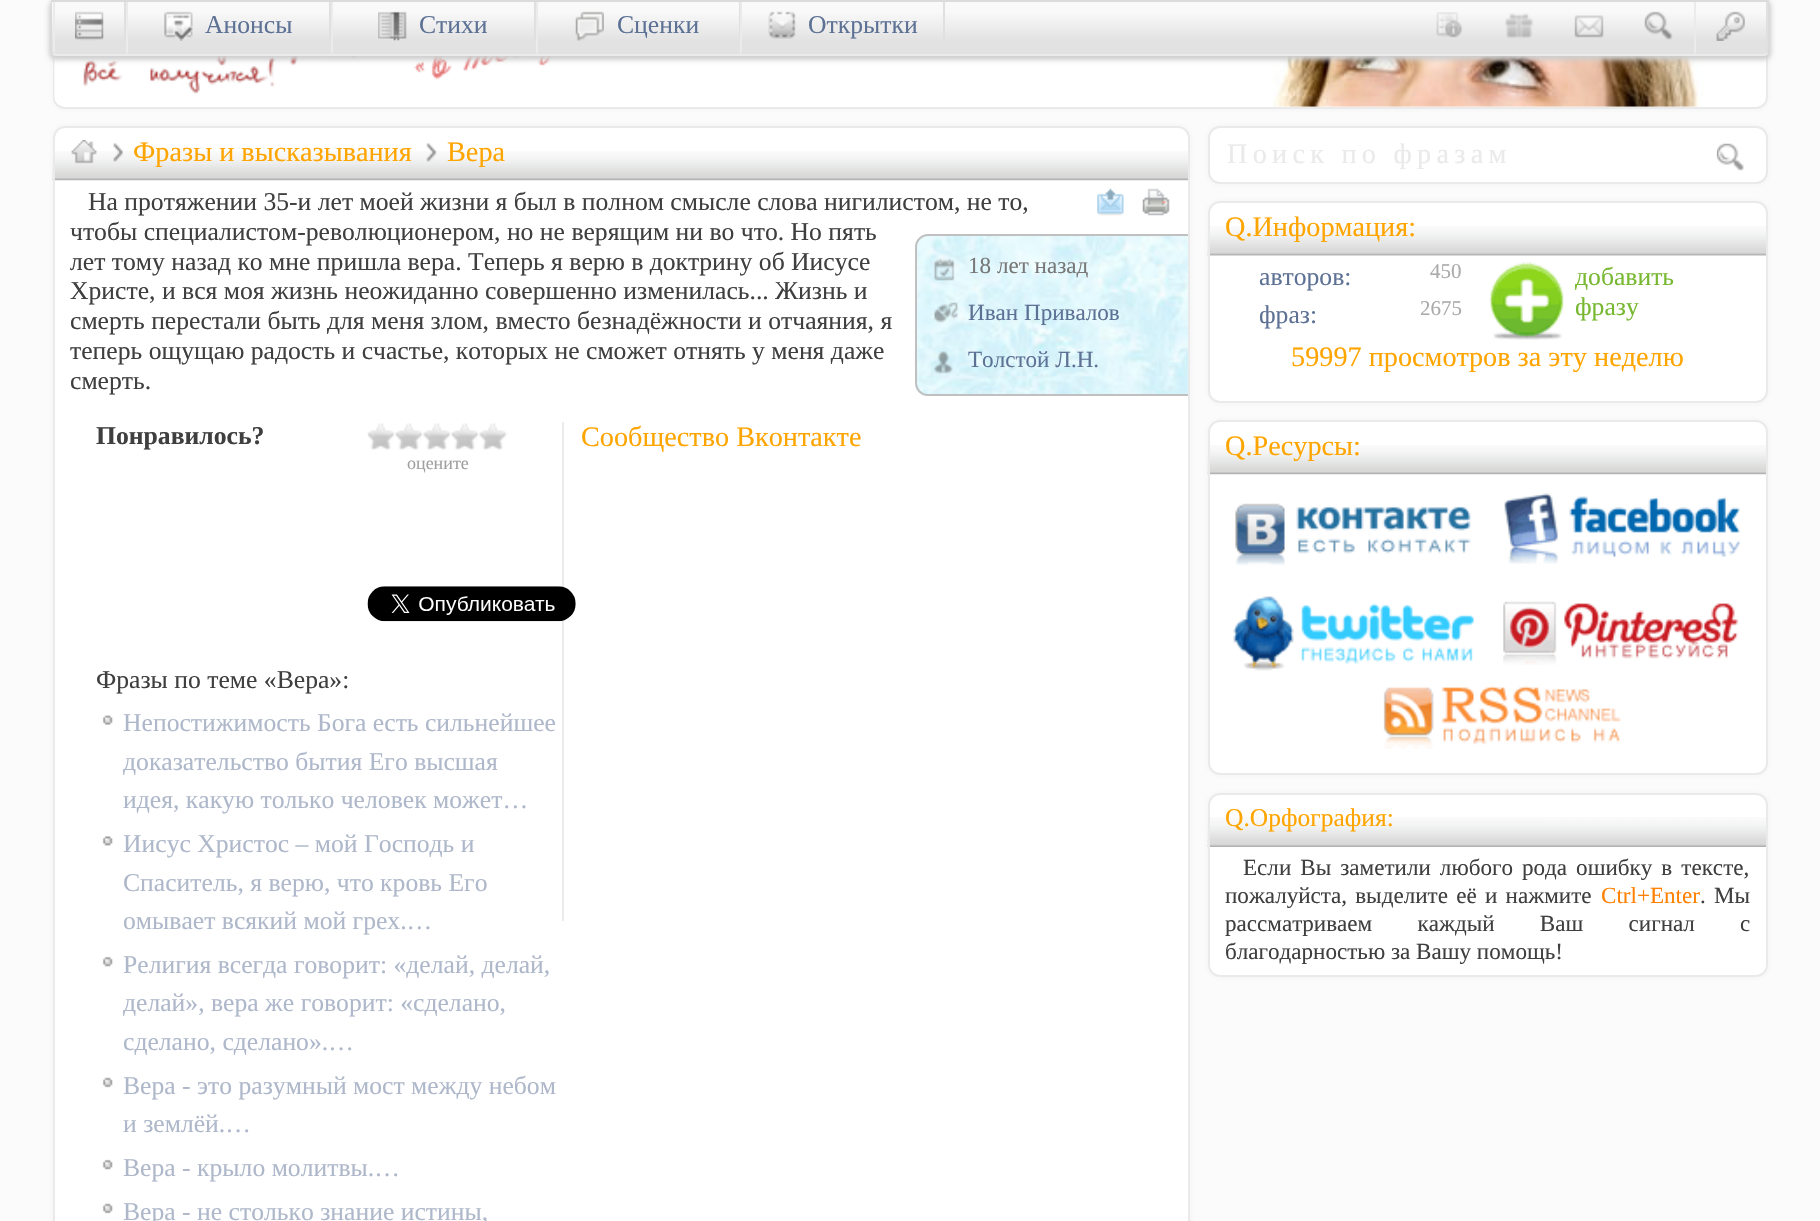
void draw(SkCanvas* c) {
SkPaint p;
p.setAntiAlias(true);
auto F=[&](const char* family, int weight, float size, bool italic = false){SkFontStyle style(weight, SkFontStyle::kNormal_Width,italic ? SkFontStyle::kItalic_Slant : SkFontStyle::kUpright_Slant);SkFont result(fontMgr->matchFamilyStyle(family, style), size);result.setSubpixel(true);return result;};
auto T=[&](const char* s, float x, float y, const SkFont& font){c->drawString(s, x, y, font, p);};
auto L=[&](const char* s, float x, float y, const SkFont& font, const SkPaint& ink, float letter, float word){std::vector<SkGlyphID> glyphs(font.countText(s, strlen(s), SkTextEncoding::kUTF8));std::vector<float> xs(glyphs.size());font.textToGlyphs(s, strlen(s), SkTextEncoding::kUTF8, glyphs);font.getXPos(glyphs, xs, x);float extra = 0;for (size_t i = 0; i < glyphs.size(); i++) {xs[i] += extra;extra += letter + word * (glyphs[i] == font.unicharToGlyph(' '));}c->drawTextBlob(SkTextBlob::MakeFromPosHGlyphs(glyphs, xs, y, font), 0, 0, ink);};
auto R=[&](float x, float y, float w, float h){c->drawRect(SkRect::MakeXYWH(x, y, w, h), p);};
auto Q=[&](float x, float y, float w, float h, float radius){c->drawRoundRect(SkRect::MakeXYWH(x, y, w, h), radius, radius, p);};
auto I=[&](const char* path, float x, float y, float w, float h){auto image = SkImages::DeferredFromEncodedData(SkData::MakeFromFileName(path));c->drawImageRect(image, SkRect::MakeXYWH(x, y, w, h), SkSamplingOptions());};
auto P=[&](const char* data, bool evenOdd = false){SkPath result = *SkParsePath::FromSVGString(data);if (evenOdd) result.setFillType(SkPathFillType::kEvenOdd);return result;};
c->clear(0xfffbfbfb);
p.setColor(0x80e5e5e5);
p.setMaskFilter(SkMaskFilter::MakeBlur(kNormal_SkBlurStyle, 2.5));
c->drawRoundRect(SkRect::MakeXYWH(53,-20,1715,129),12,12,p);
p.setMaskFilter(nullptr);
p.setColor(0xffffffff);
c->drawRoundRect(SkRect::MakeXYWH(54,-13,1713,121),11,11,p);
p.setStroke(true);
p.setStrokeWidth(2);
p.setColor(0xffeaeaea);
c->drawRoundRect(SkRect::MakeXYWH(54,-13,1713,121),11,11,p);
I("11.png",54,55,330,50);
I("12.png",414,56,317,24);
I("13.png",1273,56,431,51);
p.setStroke(false);
p.setColor(0xffcecece);
p.setMaskFilter(SkMaskFilter::MakeBlur(kNormal_SkBlurStyle, 2.5));
c->drawRoundRect(SkRect::MakeXYWH(49,0,1722,60),7,7,p);
p.setMaskFilter(nullptr);
c->save();
c->clipPath(P("M51 0h1718v51c0 3-2 5-5 5h-1708c-3 0-5-2-5-5z"),true);
{
const SkColor colors[] = {0xfff9f9f9,0xffe2e2e2};
const float stops[] = {.19,.75};
const SkPoint ends[] = {{910,1.7}, {910,54}};
p.setShader(SkGradientShader::MakeLinear(ends, colors, stops, 2, SkTileMode::kClamp));
p.setAlpha(255);
}
R(51,2,1718,52);
c->restore();
p.setShader(nullptr);
p.setColor(0xffdbdbdb);
c->drawPath(P("M51 0l2 2h1714l2-2z"),p);
c->drawPath(P("M1769 0v51c0 1 0 3-1 3l-1-1l1-1v-50h-1z"),p);
p.setColor(0xffebebeb);
c->drawPath(P("M56 56h1708c2 0 3-1 4-2l-1-1l-3 1h-1708l-3-1l-1 1c1 1 2 2 4 2z"),p);
p.setColor(0xffdbdbdb);
c->drawPath(P("M52 2h1l-2-2v51c0 1 0 3 1 3l1-1c0 0-1-1-1-2z"),p);
p.setColor(0xffe0e0e0);
R(124,2,2,38);
c->save();
c->clipPath(P("M53 2h1715v48c0 2-2 4-4 4h-1707c-2 0-4-2-4-4z"),true);
p.setColor(0xffebebeb);
R(53,2,2,51);
c->restore();
I("1.png",75,11,29,30);
p.setColor(0xffe0e0e0);
R(329,2,2,38);
p.setColor(0xffebebeb);
R(126,2,2,51);
I("2.png",164,11,29,30);
auto f1 = F("Liberation Serif",400,25.65);
p.setColor(0xff5d7195);
T("Анонсы",205,33,f1);
p.setColor(0xffe0e0e0);
R(534,2,2,38);
p.setColor(0xffebebeb);
R(331,2,2,51);
I("3.png",378,11,29,30);
p.setColor(0xff5d7195);
T("Стихи",419,33,f1);
p.setColor(0xffe0e0e0);
R(739,2,1,38);
p.setColor(0xffebebeb);
R(536,2,2,51);
I("4.png",575,11,29,30);
p.setColor(0xff5d7195);
T("Сценки",617,33,f1);
p.setColor(0xffe0e0e0);
R(943,2,2,38);
p.setColor(0xffebebeb);
R(740,2,2,51);
I("5.png",768,11,28,28);
p.setColor(0xff5d7195);
T("Открытки",808,33,f1);
I("6.png",1436,12,27,26);
I("7.png",1505,13,29,26);
I("8.png",1574,15,30,23);
I("9.png",1644,11,29,29);
c->save();
c->clipPath(P("M53 2h1715v48c0 2-2 4-4 4h-1707c-2 0-4-2-4-4z"),true);
p.setColor(0xffe0e0e0);
R(1766,2,2,51);
c->restore();
p.setColor(0xffebebeb);
R(1694,2,2,51);
I("10.png",1716,11,29,30);
p.setColor(0x80e5e5e5);
p.setMaskFilter(SkMaskFilter::MakeBlur(kNormal_SkBlurStyle, 2.5));
c->drawRoundRect(SkRect::MakeXYWH(53,126,1137,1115),12,12,p);
p.setMaskFilter(nullptr);
p.setColor(0xffffffff);
Q(53,126,1137,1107,12);
I("14.png",52,151,1136,30);
p.setStroke(true);
p.setColor(0xffeaeaea);
c->drawRoundRect(SkRect::MakeXYWH(54,127,1135,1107),11,11,p);
I("15.png",71,140,26,24);
I("16.png",113,143,10,19);
auto f2 = F("Liberation Serif",400,28.25);
p.setStroke(false);
p.setColor(0xffffa500);
T("Фразы и высказывания",133,161,f2);
I("17.png",426,143,11,19);
T("Вера",447,161,f2);
p.setColor(0xff3f3f3f);
T("На протяжении 35-и лет моей жизни я был в полном смысле слова нигилистом, не то,",88,210,f1);
T("чтобы специалистом-революционером, но не верящим ни во что. Но пять",70,240,f1);
T("лет тому назад ко мне пришла вера. Теперь я верю в доктрину об Иисусе",70,270,f1);
T("Христе, и вся моя жизнь неожиданно совершенно изменилась... Жизнь и",70,299,f1);
T("смерть перестали быть для меня злом, вместо безнадёжности и отчаяния, я",70,329,f1);
T("теперь ощущаю радость и счастье, которых не сможет отнять у меня даже",70,359,f1);
T("смерть.",70,389,f1);
p.setColor(0xffddf4fa);
c->drawPath(P("M927 235h261v161h-261c-6.5 0-12-5.5-12-12v-137c0-6.5 5.5-12 12-12z"),p);
I("18.png",915,234,273,161);
p.setColor(0xffc0c0c0);
c->drawPath(P("M928 234h260v162h-260c-7 0-13-6-13-13v-136c0-7 6-13 13-13zm0 2h260v158h-260c-6 0-11-5-11-11v-136c0-6 5-11 11-11z",true),p);
I("19.png",934,258,21,23);
auto f3 = F("Liberation Serif",400,23.1);
p.setColor(0xff777777);
T("18 лет назад",968,273,f3);
I("20.png",934,302,24,21);
p.setColor(0xff5d7195);
T("Иван Привалов",968,320,f3);
I("21.png",934,351,19,23);
T("Толстой Л.Н.",968,367,f3);
I("22.png",1097,188,27,28);
I("23.png",1142,188,28,28);
auto f4 = F("Liberation Serif",700,25.65);
p.setColor(0xff3f3f3f);
T("Понравилось?",96,444,f4);
I("24.png",367,423,141,27);
auto f5 = F("Liberation Serif",400,18);
p.setColor(0xff9f9f9f);
T("оцените",407,469,f5);
p.setColor(0xffeaebeb);
R(562,422,2,499);
I("25.png",367,586,209,36);
p.setColor(0xff3f3f3f);
T("Фразы по теме «Вера»:",96,688,f1);
I("26.png",102,715,11,10);
p.setColor(0xffaeb8ca);
T("Непостижимость Бога есть сильнейшее",123,731,f1);
T("доказательство бытия Его высшая",123,770,f1);
T("идея, какую только человек может…",123,808,f1);
I("27.png",102,836,11,10);
T("Иисус Христос – мой Господь и",123,852,f1);
T("Спаситель, я верю, что кровь Его",123,891,f1);
T("омывает всякий мой грех.…",123,929,f1);
I("28.png",102,956,11,11);
T("Религия всегда говорит: «делай, делай,",123,973,f1);
T("делай», вера же говорит: «сделано,",123,1011,f1);
T("сделано, сделано».…",123,1050,f1);
I("29.png",102,1077,11,11);
T("Вера - это разумный мост между небом",123,1094,f1);
T("и землёй.…",123,1132,f1);
I("28.png",102,1159,11,11);
T("Вера - крыло молитвы.…",123,1176,f1);
I("29.png",102,1203,11,11);
T("Вера - не столько знание истины,",123,1220,f1);
p.setColor(0xffffa500);
T("Сообщество Вконтакте",581,446,f2);
p.setColor(0x80e5e5e5);
p.setMaskFilter(SkMaskFilter::MakeBlur(kNormal_SkBlurStyle, 2.5));
c->drawRoundRect(SkRect::MakeXYWH(1208,126,560,58),12,12,p);
p.setMaskFilter(nullptr);
p.setColor(0xffffffff);
c->drawRoundRect(SkRect::MakeXYWH(1209,127,558,56),11,11,p);
p.setStroke(true);
p.setColor(0xffeaeaea);
c->drawRoundRect(SkRect::MakeXYWH(1209,127,558,56),11,11,p);
p.setStroke(false);
L("Поиск по фразам",1227,163,f2,p,5.25,0);
I("30.png",1716,143,28,28);
p.setColor(0x80e5e5e5);
p.setMaskFilter(SkMaskFilter::MakeBlur(kNormal_SkBlurStyle, 2.5));
c->drawRoundRect(SkRect::MakeXYWH(1208,201,560,202),12,12,p);
p.setMaskFilter(nullptr);
p.setColor(0xffffffff);
Q(1208,201,560,202,12);
I("31.png",1207,226,559,30);
p.setStroke(true);
p.setColor(0xffeaeaea);
c->drawRoundRect(SkRect::MakeXYWH(1209,202,558,200),11,11,p);
p.setStroke(false);
p.setColor(0xffffa500);
T("Q.Информация:",1225,236,f2);
p.setColor(0xff5d7195);
T("авторов:",1259,285,f1);
auto f6 = F("Liberation Serif",400,21);
p.setColor(0xffaaaaaa);
T("450",1430,278,f6);
p.setColor(0xff5d7195);
T("фраз:",1259,323,f1);
p.setColor(0xffaaaaaa);
T("2675",1420,315,f6);
I("32.png",1489,262,75,78);
p.setColor(0xff77b830);
T("добавить",1575,285,f1);
T("фразу",1575,315,f1);
p.setColor(0xffffa500);
T("59997 просмотров за эту неделю",1291,366,f2);
p.setColor(0x80e5e5e5);
p.setMaskFilter(SkMaskFilter::MakeBlur(kNormal_SkBlurStyle, 2.5));
c->drawRoundRect(SkRect::MakeXYWH(1208,420,560,355),12,12,p);
p.setMaskFilter(nullptr);
p.setColor(0xffffffff);
Q(1208,420,560,355,12);
I("33.png",1207,445,559,30);
p.setStroke(true);
p.setColor(0xffeaeaea);
c->drawRoundRect(SkRect::MakeXYWH(1209,421,558,353),11,11,p);
p.setStroke(false);
p.setColor(0xffffa500);
T("Q.Ресурсы:",1225,455,f2);
I("34.png",1235,503,236,63);
I("35.png",1504,493,236,71);
I("36.png",1233,596,242,75);
I("37.png",1503,601,236,64);
I("38.png",1383,685,238,64);
p.setColor(0x80e5e5e5);
p.setMaskFilter(SkMaskFilter::MakeBlur(kNormal_SkBlurStyle, 2.5));
c->drawRoundRect(SkRect::MakeXYWH(1208,793,560,184),12,12,p);
p.setMaskFilter(nullptr);
p.setColor(0xffffffff);
Q(1208,793,560,184,12);
I("39.png",1207,817,559,30);
p.setStroke(true);
p.setColor(0xffeaeaea);
c->drawRoundRect(SkRect::MakeXYWH(1209,794,558,182),11,11,p);
auto f7 = F("Liberation Serif",400,25.5);
p.setStroke(false);
p.setColor(0xffffa500);
T("Q.Орфография:",1225,826,f7);
p.setColor(0xff3f3f3f);
L("Если Вы заметили любого рода ошибку в тексте,",1243,875,f3,p,0,3.25);
L("пожалуйста, выделите её и нажмите",1225,903,f3,p,0,2.5);
p.setColor(0xffff8000);
T("Ctrl+Enter",1601,903,f3);
p.setColor(0xff3f3f3f);
L(". Мы",1700,903,f3,p,0,2.5);
L("рассматриваем каждый Ваш сигнал с",1225,931,f3,p,0,39.5);
T("благодарностью за Вашу помощь!",1225,959,f3);
}
